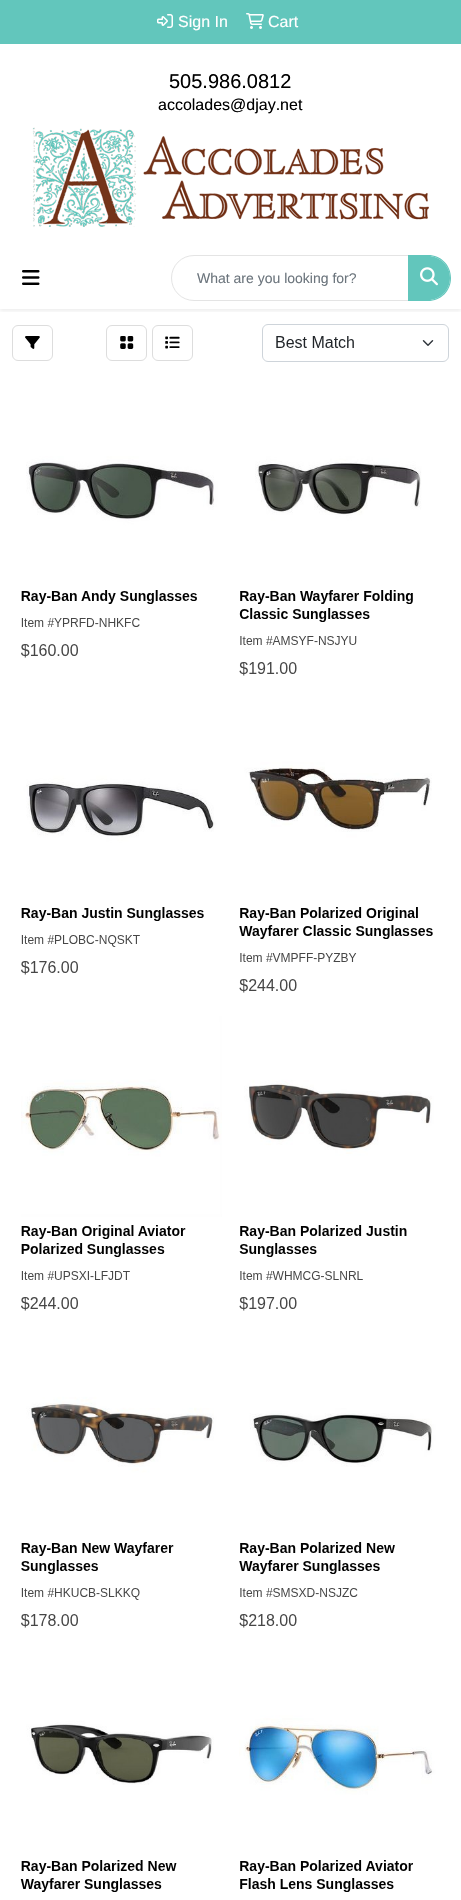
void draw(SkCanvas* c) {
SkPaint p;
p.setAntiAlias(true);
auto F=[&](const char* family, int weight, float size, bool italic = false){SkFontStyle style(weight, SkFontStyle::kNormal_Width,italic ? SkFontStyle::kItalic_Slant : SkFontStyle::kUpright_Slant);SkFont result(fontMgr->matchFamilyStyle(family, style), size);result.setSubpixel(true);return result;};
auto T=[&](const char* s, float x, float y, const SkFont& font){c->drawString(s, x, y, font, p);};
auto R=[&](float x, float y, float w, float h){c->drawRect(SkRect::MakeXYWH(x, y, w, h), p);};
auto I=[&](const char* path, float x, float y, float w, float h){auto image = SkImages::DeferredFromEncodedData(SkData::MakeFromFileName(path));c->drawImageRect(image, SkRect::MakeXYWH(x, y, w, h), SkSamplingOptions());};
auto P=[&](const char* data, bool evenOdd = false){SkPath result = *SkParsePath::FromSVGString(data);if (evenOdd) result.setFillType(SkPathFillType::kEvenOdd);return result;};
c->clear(0xffffffff);
p.setColor(0xff62c6bc);
R(0,0,461,44);
I("1.png",157,14,16,14);
auto f1 = F("Liberation Sans",400,16);
p.setColor(0xffffffff);
T("Sign In",178,27,f1);
I("2.png",246,13,18,16);
T("Cart",268,27,f1);
auto f2 = F("Liberation Sans",400,20);
p.setColor(0xff000000);
T("505.986.0812",169,88,f2);
T("accolades@djay.net",158,110,f1);
I("3.png",32,127,397,100);
c->save();
c->clipRect(SkRect::MakeXYWH(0,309,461,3));
p.setColor(0x12000000);
p.setMaskFilter(SkMaskFilter::MakeBlur(kNormal_SkBlurStyle, 2));
c->drawRect(SkRect::MakeXYWH(0,249,461,62),p);
p.setMaskFilter(nullptr);
c->restore();
I("4.png",22,270,18,15);
p.setStroke(true);
p.setStrokeWidth(1);
p.setColor(0xffe4e4e4);
c->drawPath(P("M194 255.5h214.5v45h-214.5c-12.5 0-22.5-10-22.5-22.5c0-12.5 10-22.5 22.5-22.5z"),p);
auto f3 = F("Liberation Sans",400,14);
p.setStroke(false);
p.setColor(0xff6c757d);
T("What are you looking for?",197,283,f3);
p.setColor(0xff62c6bc);
c->drawPath(P("M408 256h20c12 0 22 10 22 22c0 12-10 22-22 22h-20z"),p);
c->drawPath(P("M408 255h20c13 0 23 10 23 23c0 13-10 23-23 23h-20zm0 1h20c12 0 22 10 22 22c0 12-10 22-22 22h-20z",true),p);
I("5.png",420,267,18,19);
I("6.png",12,324,437,1568);
}
